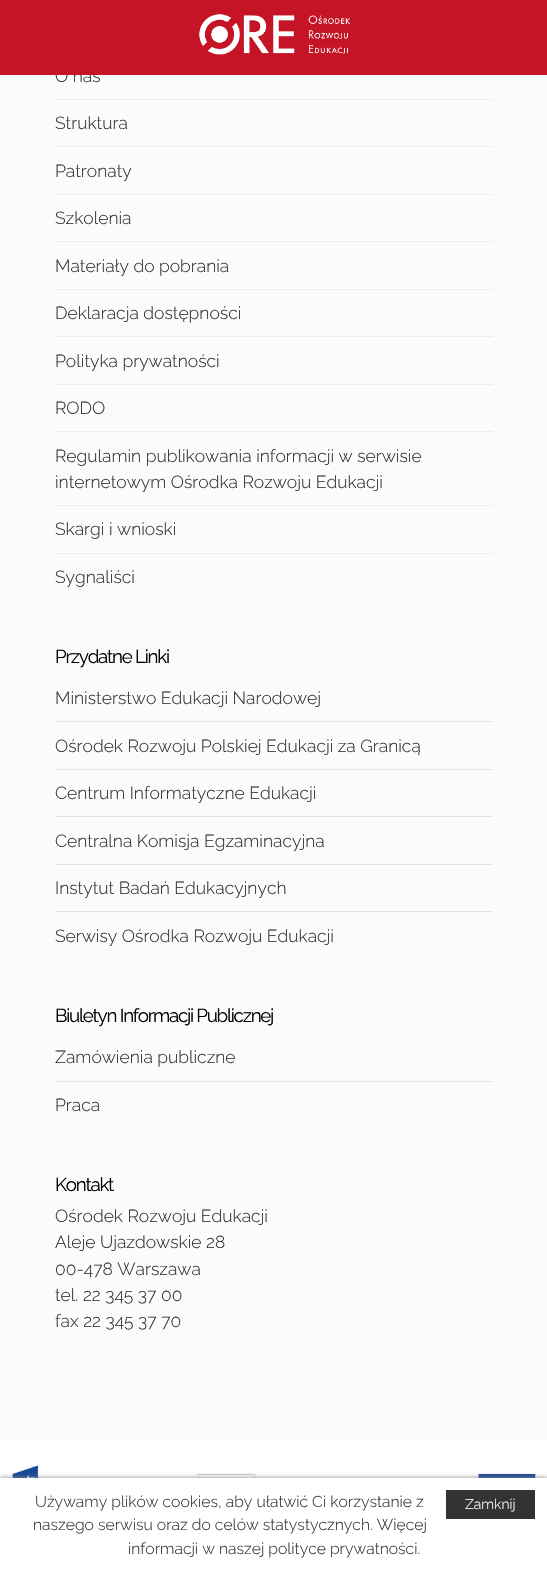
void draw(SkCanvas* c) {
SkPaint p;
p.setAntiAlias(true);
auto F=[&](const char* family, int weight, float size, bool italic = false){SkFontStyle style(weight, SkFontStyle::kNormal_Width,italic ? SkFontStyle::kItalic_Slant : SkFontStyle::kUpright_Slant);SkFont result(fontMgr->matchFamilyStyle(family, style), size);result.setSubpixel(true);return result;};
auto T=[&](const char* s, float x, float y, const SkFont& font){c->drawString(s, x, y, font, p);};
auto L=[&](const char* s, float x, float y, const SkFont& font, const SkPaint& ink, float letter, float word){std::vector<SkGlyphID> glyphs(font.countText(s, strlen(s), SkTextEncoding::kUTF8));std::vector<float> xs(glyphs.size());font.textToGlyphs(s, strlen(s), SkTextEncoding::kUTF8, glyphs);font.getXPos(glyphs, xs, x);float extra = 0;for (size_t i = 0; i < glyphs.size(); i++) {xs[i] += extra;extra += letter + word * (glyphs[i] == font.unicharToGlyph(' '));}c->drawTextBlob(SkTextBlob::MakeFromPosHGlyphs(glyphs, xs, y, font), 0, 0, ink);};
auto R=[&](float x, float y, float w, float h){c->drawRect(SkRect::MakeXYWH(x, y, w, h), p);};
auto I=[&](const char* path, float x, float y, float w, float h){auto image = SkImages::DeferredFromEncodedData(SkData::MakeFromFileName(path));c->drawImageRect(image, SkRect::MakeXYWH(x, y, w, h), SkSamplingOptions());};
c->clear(0xffffffff);
p.setColor(0xfffbfbfb);
R(0,75,547,1364);
auto f1 = F("Raleway",300,17.5);
p.setColor(0xff333333);
T("O nas",55,82,f1);
p.setColor(0xffc41425);
R(0,0,547,75);
I("1.png",199,14,151,41);
p.setColor(0xffeeeeee);
R(55,99,438,1);
R(55,146,438,1);
p.setColor(0xff333333);
T("Struktura",55,129,f1);
p.setColor(0xffeeeeee);
R(55,194,438,1);
p.setColor(0xff333333);
T("Patronaty",55,177,f1);
p.setColor(0xffeeeeee);
R(55,241,438,1);
p.setColor(0xff333333);
T("Szkolenia",55,224,f1);
p.setColor(0xffeeeeee);
R(55,289,438,1);
p.setColor(0xff333333);
T("Materiały do pobrania",55,272,f1);
p.setColor(0xffeeeeee);
R(55,336,438,1);
p.setColor(0xff333333);
T("Deklaracja dostępności",55,319,f1);
p.setColor(0xffeeeeee);
R(55,384,438,1);
p.setColor(0xff333333);
T("Polityka prywatności",55,367,f1);
p.setColor(0xffeeeeee);
R(55,431,438,1);
p.setColor(0xff333333);
T("RODO",55,414,f1);
p.setColor(0xffeeeeee);
R(55,505,438,1);
p.setColor(0xff333333);
T("Regulamin publikowania informacji w serwisie",55,462,f1);
T("internetowym Ośrodka Rozwoju Edukacji",55,488,f1);
p.setColor(0xffeeeeee);
R(55,553,438,1);
p.setColor(0xff333333);
T("Skargi i wnioski",55,535,f1);
T("Sygnaliści",55,583,f1);
auto f2 = F("Raleway",400,18.75);
p.setColor(0xff000000);
L("Przydatne Linki",55,663,f2,p,-1.25,0);
p.setColor(0xffe4e4e4);
R(55,721,438,1);
p.setColor(0xff333333);
T("Ministerstwo Edukacji Narodowej",55,704,f1);
p.setColor(0xffe4e4e4);
R(55,769,438,1);
p.setColor(0xff333333);
T("Ośrodek Rozwoju Polskiej Edukacji za Granicą",55,752,f1);
p.setColor(0xffe4e4e4);
R(55,816,438,1);
p.setColor(0xff333333);
T("Centrum Informatyczne Edukacji",55,799,f1);
p.setColor(0xffe4e4e4);
R(55,864,438,1);
p.setColor(0xff333333);
T("Centralna Komisja Egzaminacyjna",55,847,f1);
p.setColor(0xffe4e4e4);
R(55,911,438,1);
p.setColor(0xff333333);
T("Instytut Badań Edukacyjnych",55,894,f1);
T("Serwisy Ośrodka Rozwoju Edukacji",55,942,f1);
p.setColor(0xff000000);
L("Biuletyn Informacji Publicznej",55,1022,f2,p,-1.25,0);
p.setColor(0xffe4e4e4);
R(55,1081,438,1);
p.setColor(0xff333333);
T("Zamówienia publiczne",55,1063,f1);
T("Praca",55,1111,f1);
p.setColor(0xff000000);
L("Kontakt",55,1191,f2,p,-1.25,0);
p.setColor(0xff333333);
T("Ośrodek Rozwoju Edukacji",55,1222,f1);
T("Aleje Ujazdowskie 28",55,1248,f1);
T("00-478 Warszawa",55,1275,f1);
T("tel. 22 345 37 00",55,1301,f1);
T("fax 22 345 37 70",55,1327,f1);
I("2.png",10,1465,527,13);
p.setColor(0xff888888);
p.setMaskFilter(SkMaskFilter::MakeBlur(kNormal_SkBlurStyle, 2.5));
c->drawRect(SkRect::MakeXYWH(0,1478,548,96),p);
p.setMaskFilter(nullptr);
p.setColor(0xffffffff);
R(0,1478,547,95);
auto f3 = F("Raleway",300,15.75);
p.setColor(0xff333333);
T("Używamy plików cookies, aby ułatwić Ci korzystanie z",35,1507,f3);
R(446,1490,89,29);
auto f4 = F("Raleway",300,14);
p.setColor(0xffffffff);
T("Zamknij",465,1509,f4);
p.setColor(0xff333333);
T("naszego serwisu oraz do celów statystycznych. Więcej",33,1530,f3);
T("informacji w naszej polityce prywatności.",128,1554,f3);
}
